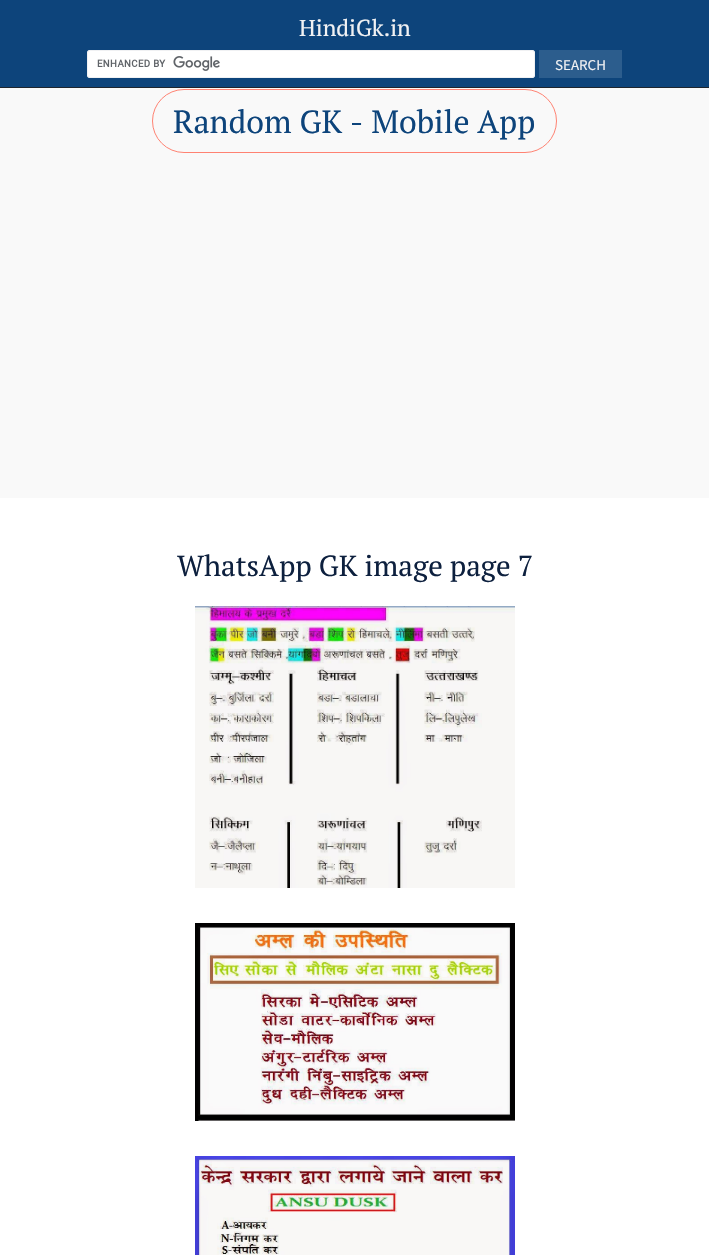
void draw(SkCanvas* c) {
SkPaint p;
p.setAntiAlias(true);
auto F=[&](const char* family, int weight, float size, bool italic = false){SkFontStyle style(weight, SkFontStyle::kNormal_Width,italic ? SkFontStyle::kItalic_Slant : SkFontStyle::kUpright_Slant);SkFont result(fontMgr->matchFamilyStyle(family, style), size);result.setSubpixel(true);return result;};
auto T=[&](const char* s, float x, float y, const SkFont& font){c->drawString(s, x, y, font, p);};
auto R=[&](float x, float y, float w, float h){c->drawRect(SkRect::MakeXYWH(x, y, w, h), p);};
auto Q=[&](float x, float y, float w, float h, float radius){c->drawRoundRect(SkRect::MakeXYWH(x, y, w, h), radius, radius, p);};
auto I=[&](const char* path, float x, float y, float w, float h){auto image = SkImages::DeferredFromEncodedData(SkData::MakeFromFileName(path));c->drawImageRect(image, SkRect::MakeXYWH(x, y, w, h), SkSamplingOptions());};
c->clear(0xfff9f9f9);
p.setColor(0xff0d447b);
R(0,0,709,87);
p.setColor(0xff1e252d);
R(0,87,709,1);
auto f1 = F("PT Serif",400,23);
p.setColor(0xfff0f1f3);
T("HindiGk.in",299,36,f1);
p.setColor(0xffffffff);
Q(87,50,448,28,3);
I("1.png",97,56,123,15);
p.setStroke(true);
p.setStrokeWidth(1);
p.setColor(0xfff0f1f3);
c->drawRoundRect(SkRect::MakeXYWH(87.5,50.5,447,27),2.5,2.5,p);
p.setStroke(false);
p.setColor(0xff2c5d8d);
R(539,50,83,28);
auto f2 = F("Source Sans Pro",400,15);
p.setColor(0xfff0f1f3);
T("SEARCH",555,70,f2);
p.setStroke(true);
p.setColor(0xffff8272);
c->drawRoundRect(SkRect::MakeXYWH(152.5,89.5,404,63),31.5,31.5,p);
auto f3 = F("PT Serif",400,32);
p.setStroke(false);
p.setColor(0xff0d447b);
T("Random GK - Mobile App",173,133,f3);
p.setColor(0xffffffff);
R(0,498,709,757);
auto f4 = F("PT Serif",400,29);
p.setColor(0xff0d203e);
T("WhatsApp GK image page 7",177,576,f4);
I("2.png",195,606,320,282);
I("3.png",195,923,320,198);
I("4.png",195,1156,320,99);
}
